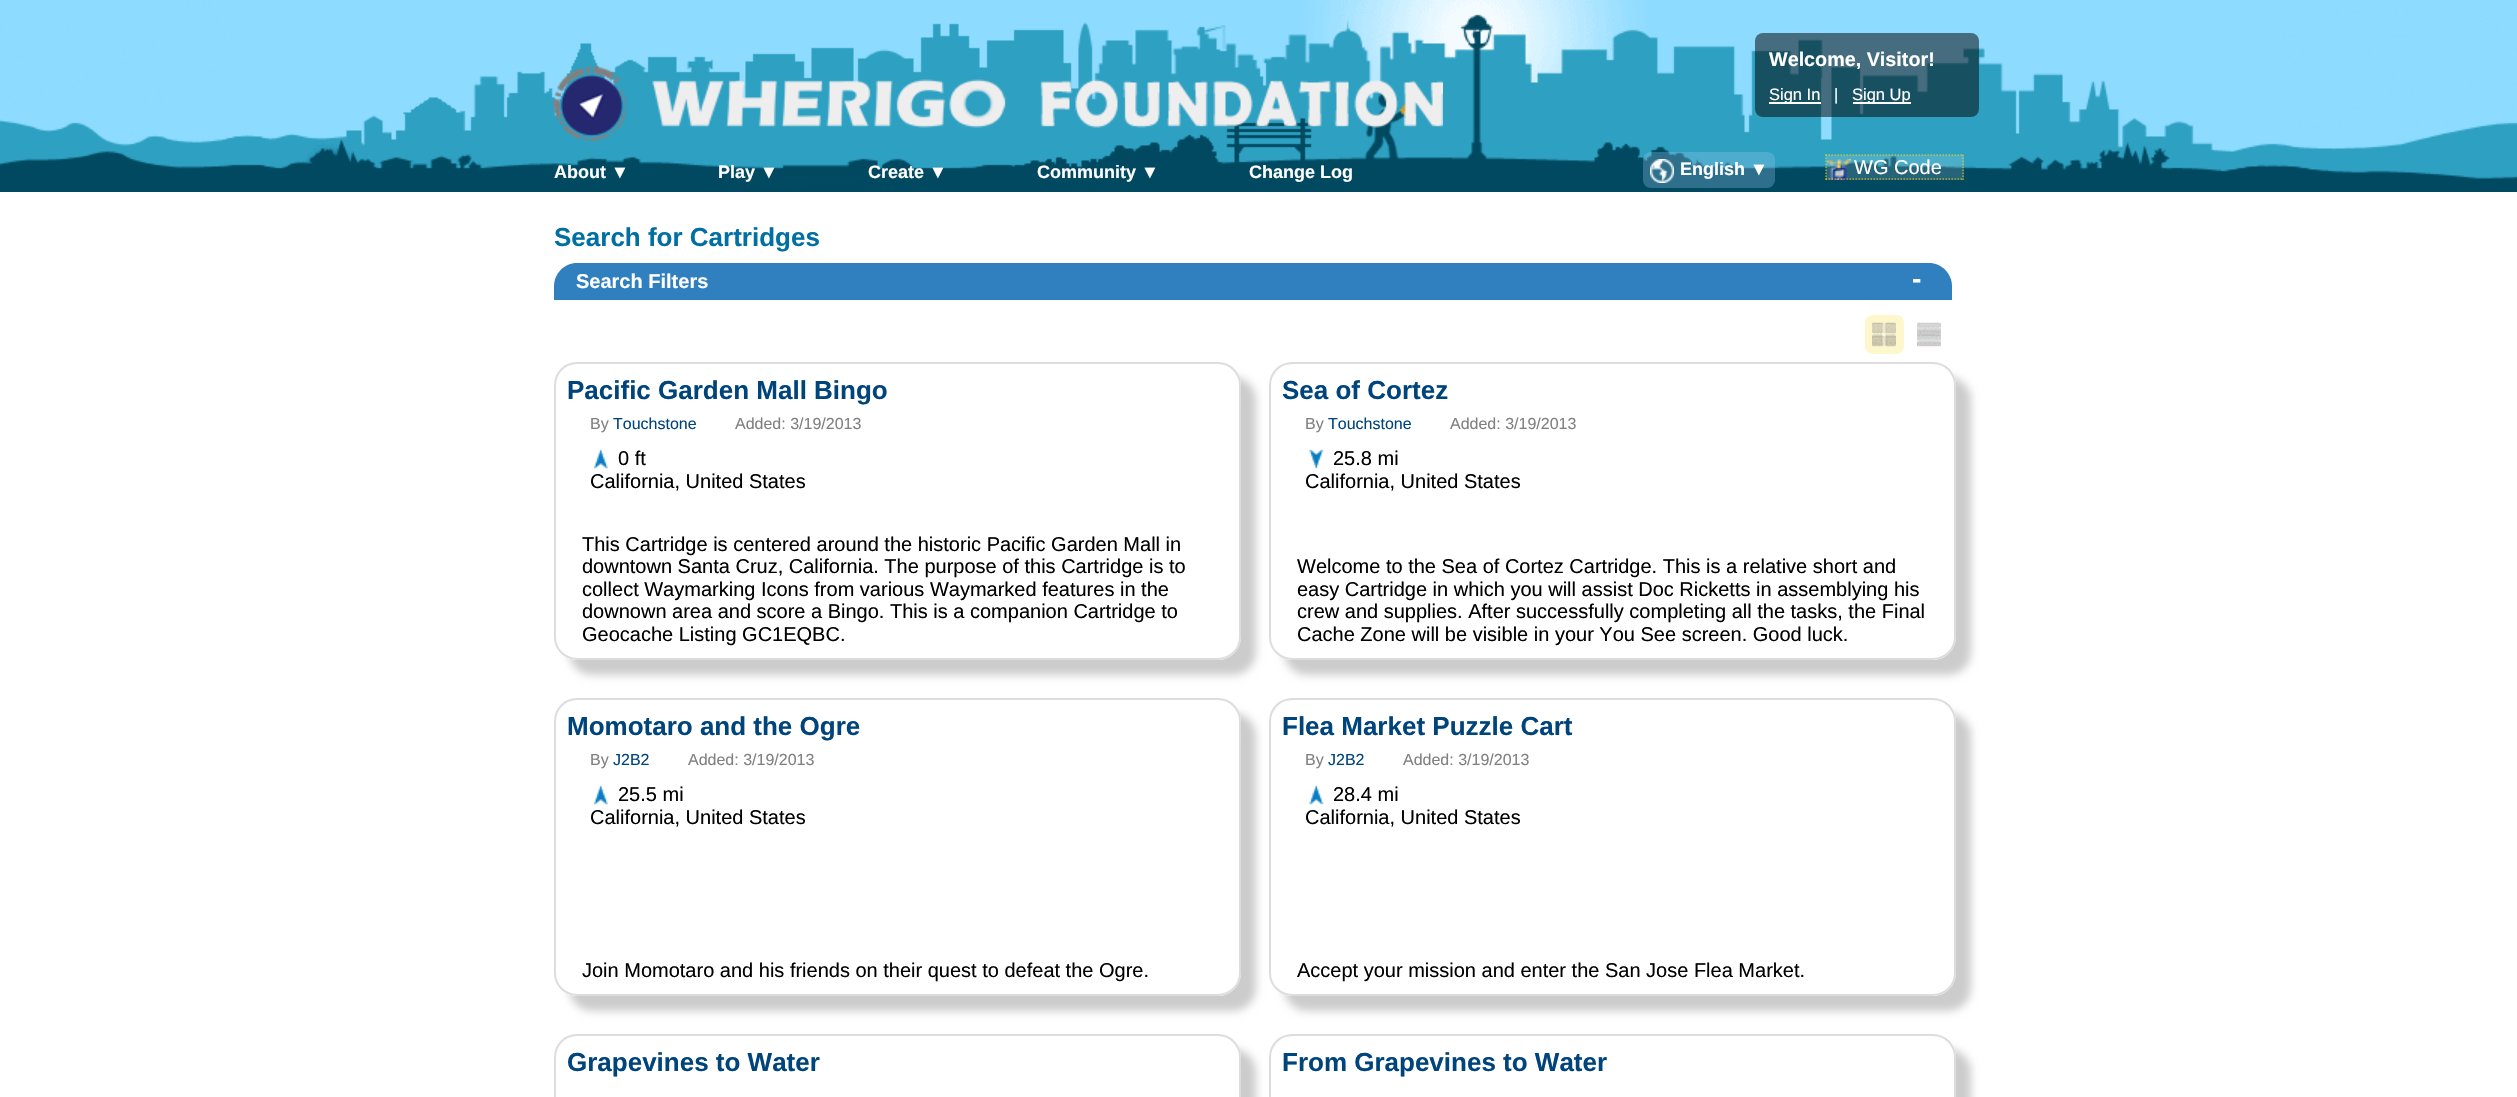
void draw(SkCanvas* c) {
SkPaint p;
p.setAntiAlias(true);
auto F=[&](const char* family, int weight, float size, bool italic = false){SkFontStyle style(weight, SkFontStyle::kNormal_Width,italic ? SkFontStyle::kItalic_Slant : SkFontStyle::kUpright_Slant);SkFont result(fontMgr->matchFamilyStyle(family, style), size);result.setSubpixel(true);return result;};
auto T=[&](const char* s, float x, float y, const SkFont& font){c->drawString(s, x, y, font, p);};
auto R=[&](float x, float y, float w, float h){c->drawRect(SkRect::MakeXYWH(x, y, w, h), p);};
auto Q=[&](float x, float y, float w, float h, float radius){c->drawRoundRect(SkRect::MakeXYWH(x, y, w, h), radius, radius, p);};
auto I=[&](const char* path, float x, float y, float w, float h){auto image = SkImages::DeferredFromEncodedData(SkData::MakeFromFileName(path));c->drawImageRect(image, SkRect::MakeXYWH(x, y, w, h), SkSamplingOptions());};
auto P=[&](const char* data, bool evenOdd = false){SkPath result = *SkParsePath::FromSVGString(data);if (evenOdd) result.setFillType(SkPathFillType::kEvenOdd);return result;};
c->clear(0xffffffff);
I("1.png",0,0,2517,192);
I("2.png",553,66,890,75);
p.setColor(0x80000000);
Q(1755,33,224,84,8);
auto f1 = F("Liberation Sans",700,19.75);
p.setColor(0xffffffff);
T("Welcome, Visitor!",1769,66,f1);
R(1769,102,52,2);
auto f2 = F("Liberation Sans",400,16.5);
T("Sign In",1769,100,f2);
T("|",1834,100,f2);
R(1853,102,58,2);
T("Sign Up",1852,100,f2);
auto f3 = F("Liberation Sans",700,18);
T("About ▼",554,178,f3);
T("Play ▼",718,178,f3);
T("Create ▼",868,178,f3);
T("Community ▼",1037,178,f3);
T("Change Log",1249,178,f3);
p.setColor(0x4d99c9f0);
Q(1643,152,132,36,8);
I("3.png",1650,159,24,24);
p.setColor(0xffffffff);
T("English ▼",1680,175,f3);
p.setColor(0x26ffffff);
R(1826,155,138,25);
I("4.png",1827,159,24,21);
p.setStroke(true);
p.setStrokeWidth(1.5);
p.setColor(0x99ffd700);
p.setPathEffect(SkDashPathEffect::Make({{1.5f,1.5f}}, 0));
c->drawPath(P("M1825.5 155h138"),p);
p.setPathEffect(nullptr);
p.setPathEffect(SkDashPathEffect::Make({{1.5f,1.5f}}, 0));
c->drawPath(P("M1963 154.5v25.5"),p);
p.setPathEffect(nullptr);
p.setPathEffect(SkDashPathEffect::Make({{1.5f,1.5f}}, 0));
c->drawPath(P("M1825.5 179h138"),p);
p.setPathEffect(nullptr);
p.setPathEffect(SkDashPathEffect::Make({{1.5f,1.5f}}, 0));
c->drawPath(P("M1826 154.5v25.5"),p);
p.setPathEffect(nullptr);
auto f4 = F("Liberation Sans",400,20);
p.setStroke(false);
p.setColor(0xffffffff);
T("WG Code",1854,174,f4);
auto f5 = F("Liberation Sans",700,26);
p.setColor(0xff006fa3);
T("Search for Cartridges",554,246,f5);
p.setColor(0xff307fbf);
c->drawPath(P("M577 263h1352c12.5 0 23 10.5 23 23v14h-1398v-14c0-12.5 10.5-23 23-23z"),p);
auto f6 = F("Liberation Sans",700,20);
p.setColor(0xffffffff);
T("Search Filters",576,288,f6);
auto f7 = F("Liberation Sans",700,28);
T("-",1912,288,f7);
p.setColor(0xfffff7cc);
Q(1865,315,39,39,8);
I("5.png",1872,322,24,25);
I("6.png",1917,322,24,25);
c->save();
c->clipPath(P("M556 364h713v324h-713zm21-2h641c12.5 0 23 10.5 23 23v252c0 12.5-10.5 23-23 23h-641c-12.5 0-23-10.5-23-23v-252c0-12.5 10.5-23 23-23z",true),true);
p.setColor(0xffcccccc);
p.setMaskFilter(SkMaskFilter::MakeBlur(kNormal_SkBlurStyle, 4));
c->drawRoundRect(SkRect::MakeXYWH(569,377,687,298),23,23,p);
p.setMaskFilter(nullptr);
c->restore();
p.setStroke(true);
p.setStrokeWidth(2);
p.setColor(0xffdddddd);
c->drawRoundRect(SkRect::MakeXYWH(555,363,685,296),22,22,p);
p.setStroke(false);
p.setColor(0xff00447c);
T("Pacific Garden Mall Bingo",567,399,f5);
auto f8 = F("Liberation Sans",400,16);
p.setColor(0xff808080);
T("By",590,429,f8);
p.setColor(0xff00447c);
T("Touchstone",613,429,f8);
p.setColor(0xff808080);
T("Added: 3/19/2013",735,429,f8);
I("7.png",593,449,15,20);
p.setColor(0xff000000);
T("0 ft",618,465,f4);
T("California, United States",590,488,f4);
T("This Cartridge is centered around the historic Pacific Garden Mall in",582,551,f4);
T("downtown Santa Cruz, California. The purpose of this Cartridge is to",582,573,f4);
T("collect Waymarking Icons from various Waymarked features in the",582,596,f4);
T("downown area and score a Bingo. This is a companion Cartridge to",582,618,f4);
T("Geocache Listing GC1EQBC.",582,641,f4);
c->save();
c->clipPath(P("M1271 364h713v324h-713zm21-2h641c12.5 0 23 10.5 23 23v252c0 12.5-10.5 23-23 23h-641c-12.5 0-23-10.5-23-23v-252c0-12.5 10.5-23 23-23z",true),true);
p.setColor(0xffcccccc);
p.setMaskFilter(SkMaskFilter::MakeBlur(kNormal_SkBlurStyle, 4));
c->drawRoundRect(SkRect::MakeXYWH(1284,377,687,298),23,23,p);
p.setMaskFilter(nullptr);
c->restore();
p.setStroke(true);
p.setColor(0xffdddddd);
c->drawRoundRect(SkRect::MakeXYWH(1270,363,685,296),22,22,p);
p.setStroke(false);
p.setColor(0xff00447c);
T("Sea of Cortez",1282,399,f5);
p.setColor(0xff808080);
T("By",1305,429,f8);
p.setColor(0xff00447c);
T("Touchstone",1328,429,f8);
p.setColor(0xff808080);
T("Added: 3/19/2013",1450,429,f8);
I("8.png",1309,449,15,20);
p.setColor(0xff000000);
T("25.8 mi",1333,465,f4);
T("California, United States",1305,488,f4);
T("Welcome to the Sea of Cortez Cartridge. This is a relative short and",1297,573,f4);
T("easy Cartridge in which you will assist Doc Ricketts in assemblying his",1297,596,f4);
T("crew and supplies. After successfully completing all the tasks, the Final",1297,618,f4);
T("Cache Zone will be visible in your You See screen. Good luck.",1297,641,f4);
c->save();
c->clipPath(P("M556 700h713v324h-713zm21-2h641c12.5 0 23 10.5 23 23v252c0 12.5-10.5 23-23 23h-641c-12.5 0-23-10.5-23-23v-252c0-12.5 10.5-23 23-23z",true),true);
p.setColor(0xffcccccc);
p.setMaskFilter(SkMaskFilter::MakeBlur(kNormal_SkBlurStyle, 4));
c->drawRoundRect(SkRect::MakeXYWH(569,713,687,298),23,23,p);
p.setMaskFilter(nullptr);
c->restore();
p.setStroke(true);
p.setColor(0xffdddddd);
c->drawRoundRect(SkRect::MakeXYWH(555,699,685,296),22,22,p);
p.setStroke(false);
p.setColor(0xff00447c);
T("Momotaro and the Ogre",567,735,f5);
p.setColor(0xff808080);
T("By",590,765,f8);
p.setColor(0xff00447c);
T("J2B2",613,765,f8);
p.setColor(0xff808080);
T("Added: 3/19/2013",688,765,f8);
I("7.png",593,785,15,20);
p.setColor(0xff000000);
T("25.5 mi",618,801,f4);
T("California, United States",590,824,f4);
T("Join Momotaro and his friends on their quest to defeat the Ogre.",582,977,f4);
c->save();
c->clipPath(P("M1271 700h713v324h-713zm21-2h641c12.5 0 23 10.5 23 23v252c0 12.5-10.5 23-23 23h-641c-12.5 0-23-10.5-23-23v-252c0-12.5 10.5-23 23-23z",true),true);
p.setColor(0xffcccccc);
p.setMaskFilter(SkMaskFilter::MakeBlur(kNormal_SkBlurStyle, 4));
c->drawRoundRect(SkRect::MakeXYWH(1284,713,687,298),23,23,p);
p.setMaskFilter(nullptr);
c->restore();
p.setStroke(true);
p.setColor(0xffdddddd);
c->drawRoundRect(SkRect::MakeXYWH(1270,699,685,296),22,22,p);
p.setStroke(false);
p.setColor(0xff00447c);
T("Flea Market Puzzle Cart",1282,735,f5);
p.setColor(0xff808080);
T("By",1305,765,f8);
p.setColor(0xff00447c);
T("J2B2",1328,765,f8);
p.setColor(0xff808080);
T("Added: 3/19/2013",1403,765,f8);
I("9.png",1309,785,15,20);
p.setColor(0xff000000);
T("28.4 mi",1333,801,f4);
T("California, United States",1305,824,f4);
T("Accept your mission and enter the San Jose Flea Market.",1297,977,f4);
c->save();
c->clipPath(P("M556 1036h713v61h-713zm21-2h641c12.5 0 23 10.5 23 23v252c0 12.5-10.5 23-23 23h-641c-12.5 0-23-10.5-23-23v-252c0-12.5 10.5-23 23-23z",true),true);
p.setColor(0xffcccccc);
p.setMaskFilter(SkMaskFilter::MakeBlur(kNormal_SkBlurStyle, 4));
c->drawRoundRect(SkRect::MakeXYWH(569,1049,687,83),23,23,p);
p.setMaskFilter(nullptr);
c->restore();
p.setStroke(true);
p.setColor(0xffdddddd);
c->drawRoundRect(SkRect::MakeXYWH(555,1035,685,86),22,22,p);
p.setStroke(false);
p.setColor(0xff00447c);
T("Grapevines to Water",567,1071,f5);
c->save();
c->clipPath(P("M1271 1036h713v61h-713zm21-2h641c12.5 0 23 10.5 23 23v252c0 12.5-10.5 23-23 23h-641c-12.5 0-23-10.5-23-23v-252c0-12.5 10.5-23 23-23z",true),true);
p.setColor(0xffcccccc);
p.setMaskFilter(SkMaskFilter::MakeBlur(kNormal_SkBlurStyle, 4));
c->drawRoundRect(SkRect::MakeXYWH(1284,1049,687,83),23,23,p);
p.setMaskFilter(nullptr);
c->restore();
p.setStroke(true);
p.setColor(0xffdddddd);
c->drawRoundRect(SkRect::MakeXYWH(1270,1035,685,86),22,22,p);
p.setStroke(false);
p.setColor(0xff00447c);
T("From Grapevines to Water",1282,1071,f5);
}
